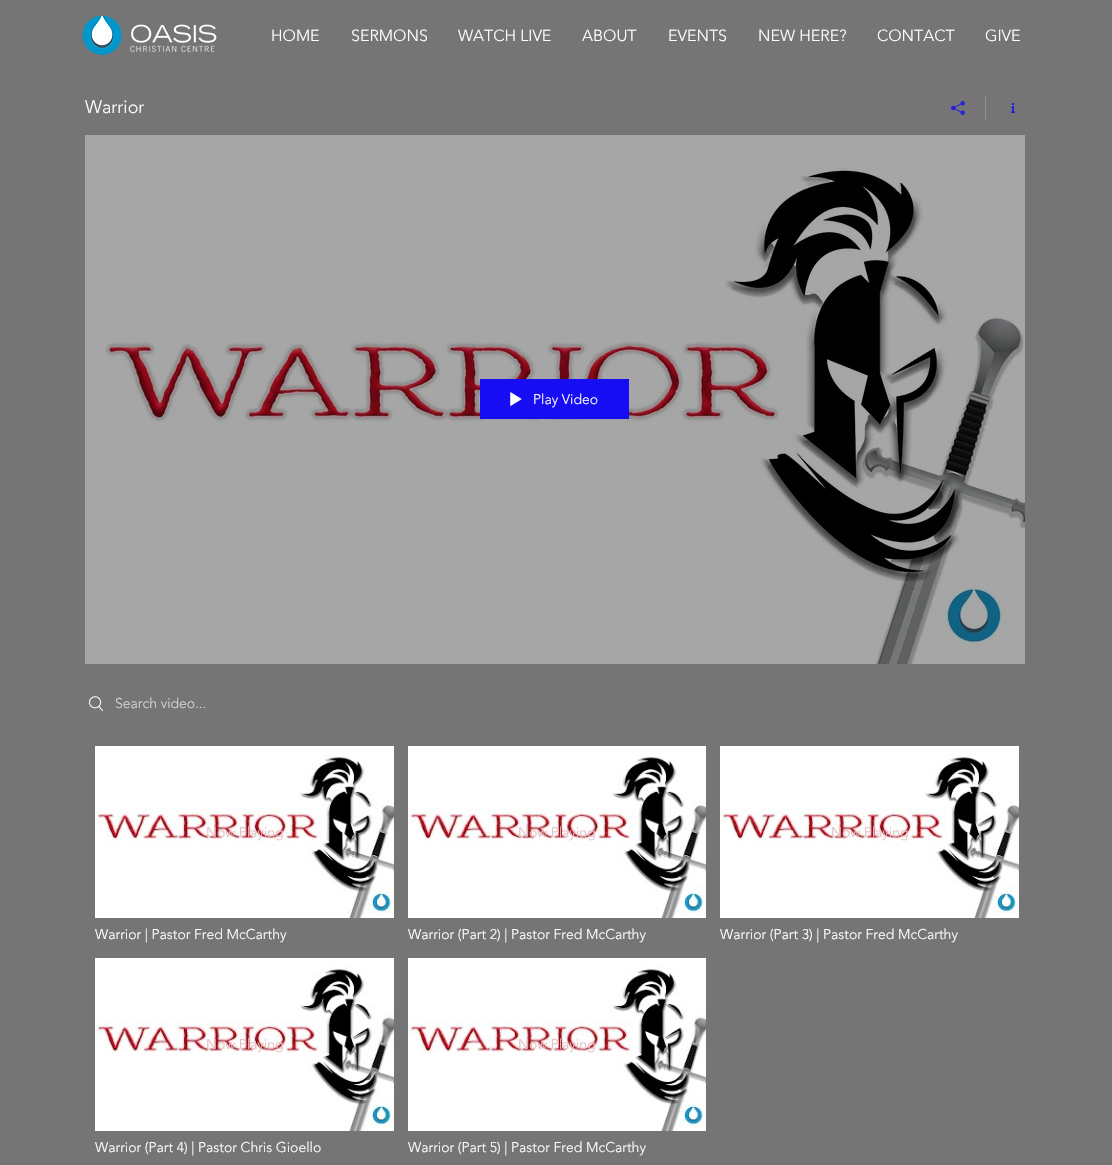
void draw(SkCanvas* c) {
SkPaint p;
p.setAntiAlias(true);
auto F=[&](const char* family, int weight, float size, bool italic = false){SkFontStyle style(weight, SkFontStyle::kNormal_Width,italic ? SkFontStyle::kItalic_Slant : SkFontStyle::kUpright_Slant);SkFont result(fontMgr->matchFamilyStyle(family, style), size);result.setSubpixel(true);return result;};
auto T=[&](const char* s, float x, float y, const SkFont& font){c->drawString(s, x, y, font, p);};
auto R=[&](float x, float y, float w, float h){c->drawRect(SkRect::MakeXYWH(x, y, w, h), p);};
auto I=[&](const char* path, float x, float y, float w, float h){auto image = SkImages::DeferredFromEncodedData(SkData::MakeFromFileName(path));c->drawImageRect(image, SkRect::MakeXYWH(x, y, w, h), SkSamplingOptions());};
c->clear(0xff757575);
I("1.png",82,16,135,39);
auto f1 = F("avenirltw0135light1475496",300,16);
p.setColor(0xffffffff);
T("HOME",271,41,f1);
T("SERMONS",351,41,f1);
T("WATCH LIVE",458,41,f1);
T("ABOUT",582,41,f1);
T("EVENTS",668,41,f1);
T("NEW HERE?",758,41,f1);
T("CONTACT",877,41,f1);
T("GIVE",985,41,f1);
auto f2 = F("avenirltw0135light1475496",300,18);
T("Warrior",85,113,f2);
p.setColor(0xff919191);
R(985,96,1,24);
I("2.png",951,101,14,14);
I("3.png",1011,103,4,10);
I("4.png",85,135,940,529);
I("5.png",147,170,878,473);
p.setColor(0xff170df2);
R(480,379,149,40);
I("6.png",510,392,12,14);
auto f3 = F("avenirltw0135light1475496",300,14);
p.setColor(0xffffffff);
T("Play Video",533,404,f3);
I("7.png",89,696,14,16);
p.setColor(0xffd6d6d6);
T("Search video...",115,708,f3);
I("8.png",95,746,299,172);
I("9.png",97,757,297,161);
p.setColor(0xffe4bec1);
T("Now Playing",206,837,f3);
p.setColor(0xffffffff);
T("Warrior | Pastor Fred McCarthy",95,939,f3);
I("10.png",408,746,298,172);
I("11.png",410,757,296,161);
p.setColor(0xffe4bec1);
T("Now Playing",518,837,f3);
p.setColor(0xffffffff);
T("Warrior (Part 2) | Pastor Fred McCarthy",408,939,f3);
I("12.png",720,746,299,172);
I("13.png",722,757,297,161);
p.setColor(0xffe4bec1);
T("Now Playing",831,837,f3);
p.setColor(0xffffffff);
T("Warrior (Part 3) | Pastor Fred McCarthy",720,939,f3);
I("14.png",95,958,299,173);
I("15.png",97,969,297,162);
p.setColor(0xffe4bec1);
T("Now Playing",206,1049,f3);
p.setColor(0xffffffff);
T("Warrior (Part 4) | Pastor Chris Gioello",95,1152,f3);
I("16.png",408,958,298,173);
I("17.png",410,969,296,162);
p.setColor(0xffe4bec1);
T("Now Playing",518,1049,f3);
p.setColor(0xffffffff);
T("Warrior (Part 5) | Pastor Fred McCarthy",408,1152,f3);
}
